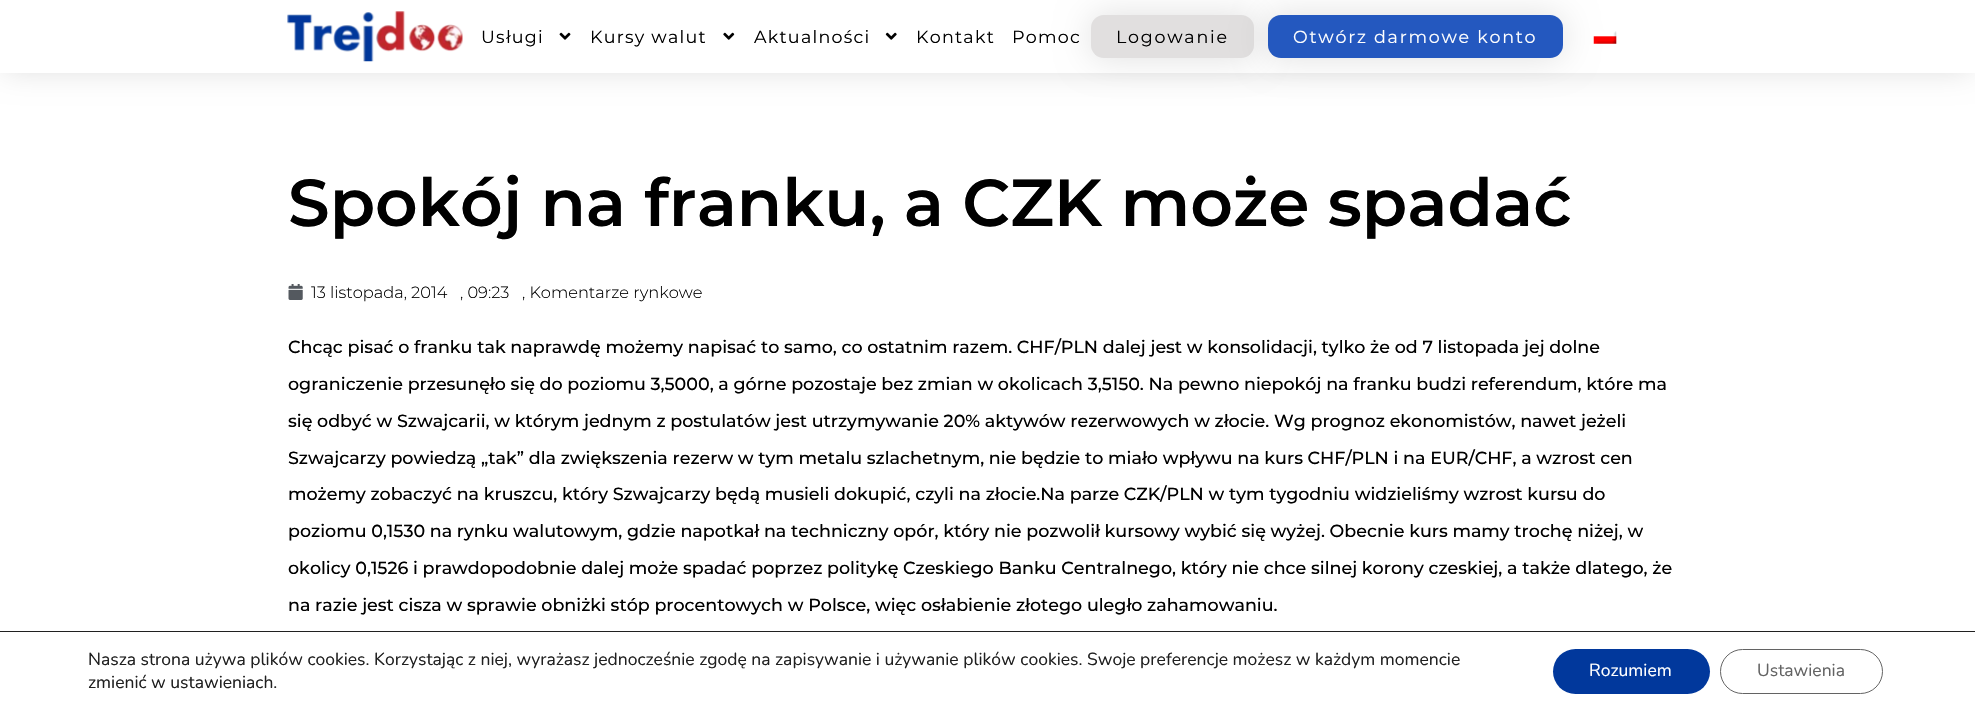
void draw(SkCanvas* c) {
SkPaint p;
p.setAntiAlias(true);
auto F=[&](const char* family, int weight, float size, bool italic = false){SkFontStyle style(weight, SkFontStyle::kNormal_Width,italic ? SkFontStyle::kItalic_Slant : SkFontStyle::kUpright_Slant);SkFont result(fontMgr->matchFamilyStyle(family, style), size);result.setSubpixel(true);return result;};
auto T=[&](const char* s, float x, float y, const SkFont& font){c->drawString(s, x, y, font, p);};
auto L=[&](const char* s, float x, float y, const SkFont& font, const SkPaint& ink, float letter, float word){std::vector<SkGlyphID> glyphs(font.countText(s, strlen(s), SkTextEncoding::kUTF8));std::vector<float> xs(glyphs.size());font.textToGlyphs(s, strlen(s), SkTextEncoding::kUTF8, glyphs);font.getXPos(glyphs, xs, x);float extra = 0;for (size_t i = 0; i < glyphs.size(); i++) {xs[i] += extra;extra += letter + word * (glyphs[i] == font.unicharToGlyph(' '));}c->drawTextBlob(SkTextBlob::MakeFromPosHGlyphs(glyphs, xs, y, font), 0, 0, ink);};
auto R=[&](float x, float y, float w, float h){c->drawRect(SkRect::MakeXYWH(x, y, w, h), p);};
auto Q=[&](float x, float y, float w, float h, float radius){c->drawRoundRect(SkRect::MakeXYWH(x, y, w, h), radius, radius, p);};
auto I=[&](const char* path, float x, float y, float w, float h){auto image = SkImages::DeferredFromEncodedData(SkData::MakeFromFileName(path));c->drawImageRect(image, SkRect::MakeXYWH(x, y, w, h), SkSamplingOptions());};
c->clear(0xffffffff);
p.setColor(0x26000000);
p.setMaskFilter(SkMaskFilter::MakeBlur(kNormal_SkBlurStyle, 15.5));
c->drawRect(SkRect::MakeXYWH(4,4,1967,65),p);
p.setMaskFilter(nullptr);
p.setColor(0xffffffff);
R(0,0,1975,73);
I("1.png",287,11,176,51);
auto f1 = F("Montserrat",400,17.5);
p.setColor(0xff000000);
L("Usługi",481,43,f1,p,1.25,0);
I("2.png",559,32,12,8);
L("Kursy walut",590,43,f1,p,1.25,0);
I("3.png",723,32,12,8);
L("Aktualności",754,43,f1,p,1.25,0);
I("4.png",885,32,12,8);
L("Kontakt",916,43,f1,p,1.25,0);
p.setColor(0x1f000000);
p.setMaskFilter(SkMaskFilter::MakeBlur(kNormal_SkBlurStyle, 17));
c->drawRoundRect(SkRect::MakeXYWH(1091,15,163,43),13,13,p);
p.setMaskFilter(nullptr);
p.setColor(0xff000000);
L("Pomoc",1012,43,f1,p,1.25,0);
p.setColor(0xffe1dfdf);
Q(1091,15,163,43,13);
p.setColor(0xff000000);
L("Logowanie",1116,43,f1,p,1.75,0);
p.setColor(0x1f000000);
p.setMaskFilter(SkMaskFilter::MakeBlur(kNormal_SkBlurStyle, 17));
c->drawRoundRect(SkRect::MakeXYWH(1268,15,295,43),13,13,p);
p.setMaskFilter(nullptr);
p.setColor(0xff2458bf);
Q(1268,15,295,43,13);
p.setColor(0xffffffff);
L("Otwórz darmowe konto",1293,43,f1,p,1.75,0);
I("5.png",1593,31,24,13);
auto f2 = F("Montserrat",600,66.25);
p.setColor(0xff000000);
T("Spokój na franku, a CZK może spadać",288,226,f2);
I("6.png",288,284,15,16);
auto f3 = F("Montserrat",300,16.25);
T("13 listopada, 2014",311,298,f3);
T(", 09:23",460,298,f3);
T(", Komentarze rynkowe",522,298,f3);
auto f4 = F("Montserrat",500,17.5);
T("Chcąc pisać o franku tak naprawdę możemy napisać to samo, co ostatnim razem. CHF/PLN dalej jest w konsolidacji, tylko że od 7 listopada jej dolne",288,353,f4);
T("ograniczenie przesunęło się do poziomu 3,5000, a górne pozostaje bez zmian w okolicach 3,5150. Na pewno niepokój na franku budzi referendum, które ma",288,390,f4);
T("się odbyć w Szwajcarii, w którym jednym z postulatów jest utrzymywanie 20% aktywów rezerwowych w złocie. Wg prognoz ekonomistów, nawet jeżeli",288,427,f4);
T("Szwajcarzy powiedzą „tak” dla zwiększenia rezerw w tym metalu szlachetnym, nie będzie to miało wpływu na kurs CHF/PLN i na EUR/CHF, a wzrost cen",288,464,f4);
T("możemy zobaczyć na kruszcu, który Szwajcarzy będą musieli dokupić, czyli na złocie.Na parze CZK/PLN w tym tygodniu widzieliśmy wzrost kursu do",288,500,f4);
T("poziomu 0,1530 na rynku walutowym, gdzie napotkał na techniczny opór, który nie pozwolił kursowy wybić się wyżej. Obecnie kurs mamy trochę niżej, w",288,537,f4);
T("okolicy 0,1526 i prawdopodobnie dalej może spadać poprzez politykę Czeskiego Banku Centralnego, który nie chce silnej korony czeskiej, a także dlatego, że",288,574,f4);
T("na razie jest cisza w sprawie obniżki stóp procentowych w Polsce, więc osłabienie złotego uległo zahamowaniu.",288,611,f4);
p.setColor(0xff202020);
R(0,631,1975,1);
auto f5 = F("Nunito",400,17.5);
T("Nasza strona używa plików cookies. Korzystając z niej, wyrażasz jednocześnie zgodę na zapisywanie i używanie plików cookies. Swoje preferencje możesz w każdym momencie",88,665,f5);
T("zmienić w ustawieniach.",88,688,f5);
p.setColor(0xff01389c);
Q(1553,649,157,45,22.5);
p.setColor(0xffffffff);
T("Rozumiem",1589,676,f5);
p.setStroke(true);
p.setStrokeWidth(1);
p.setColor(0xff636363);
c->drawRoundRect(SkRect::MakeXYWH(1720.5,649.5,162,44),22,22,p);
p.setStroke(false);
T("Ustawienia",1757,676,f5);
}
